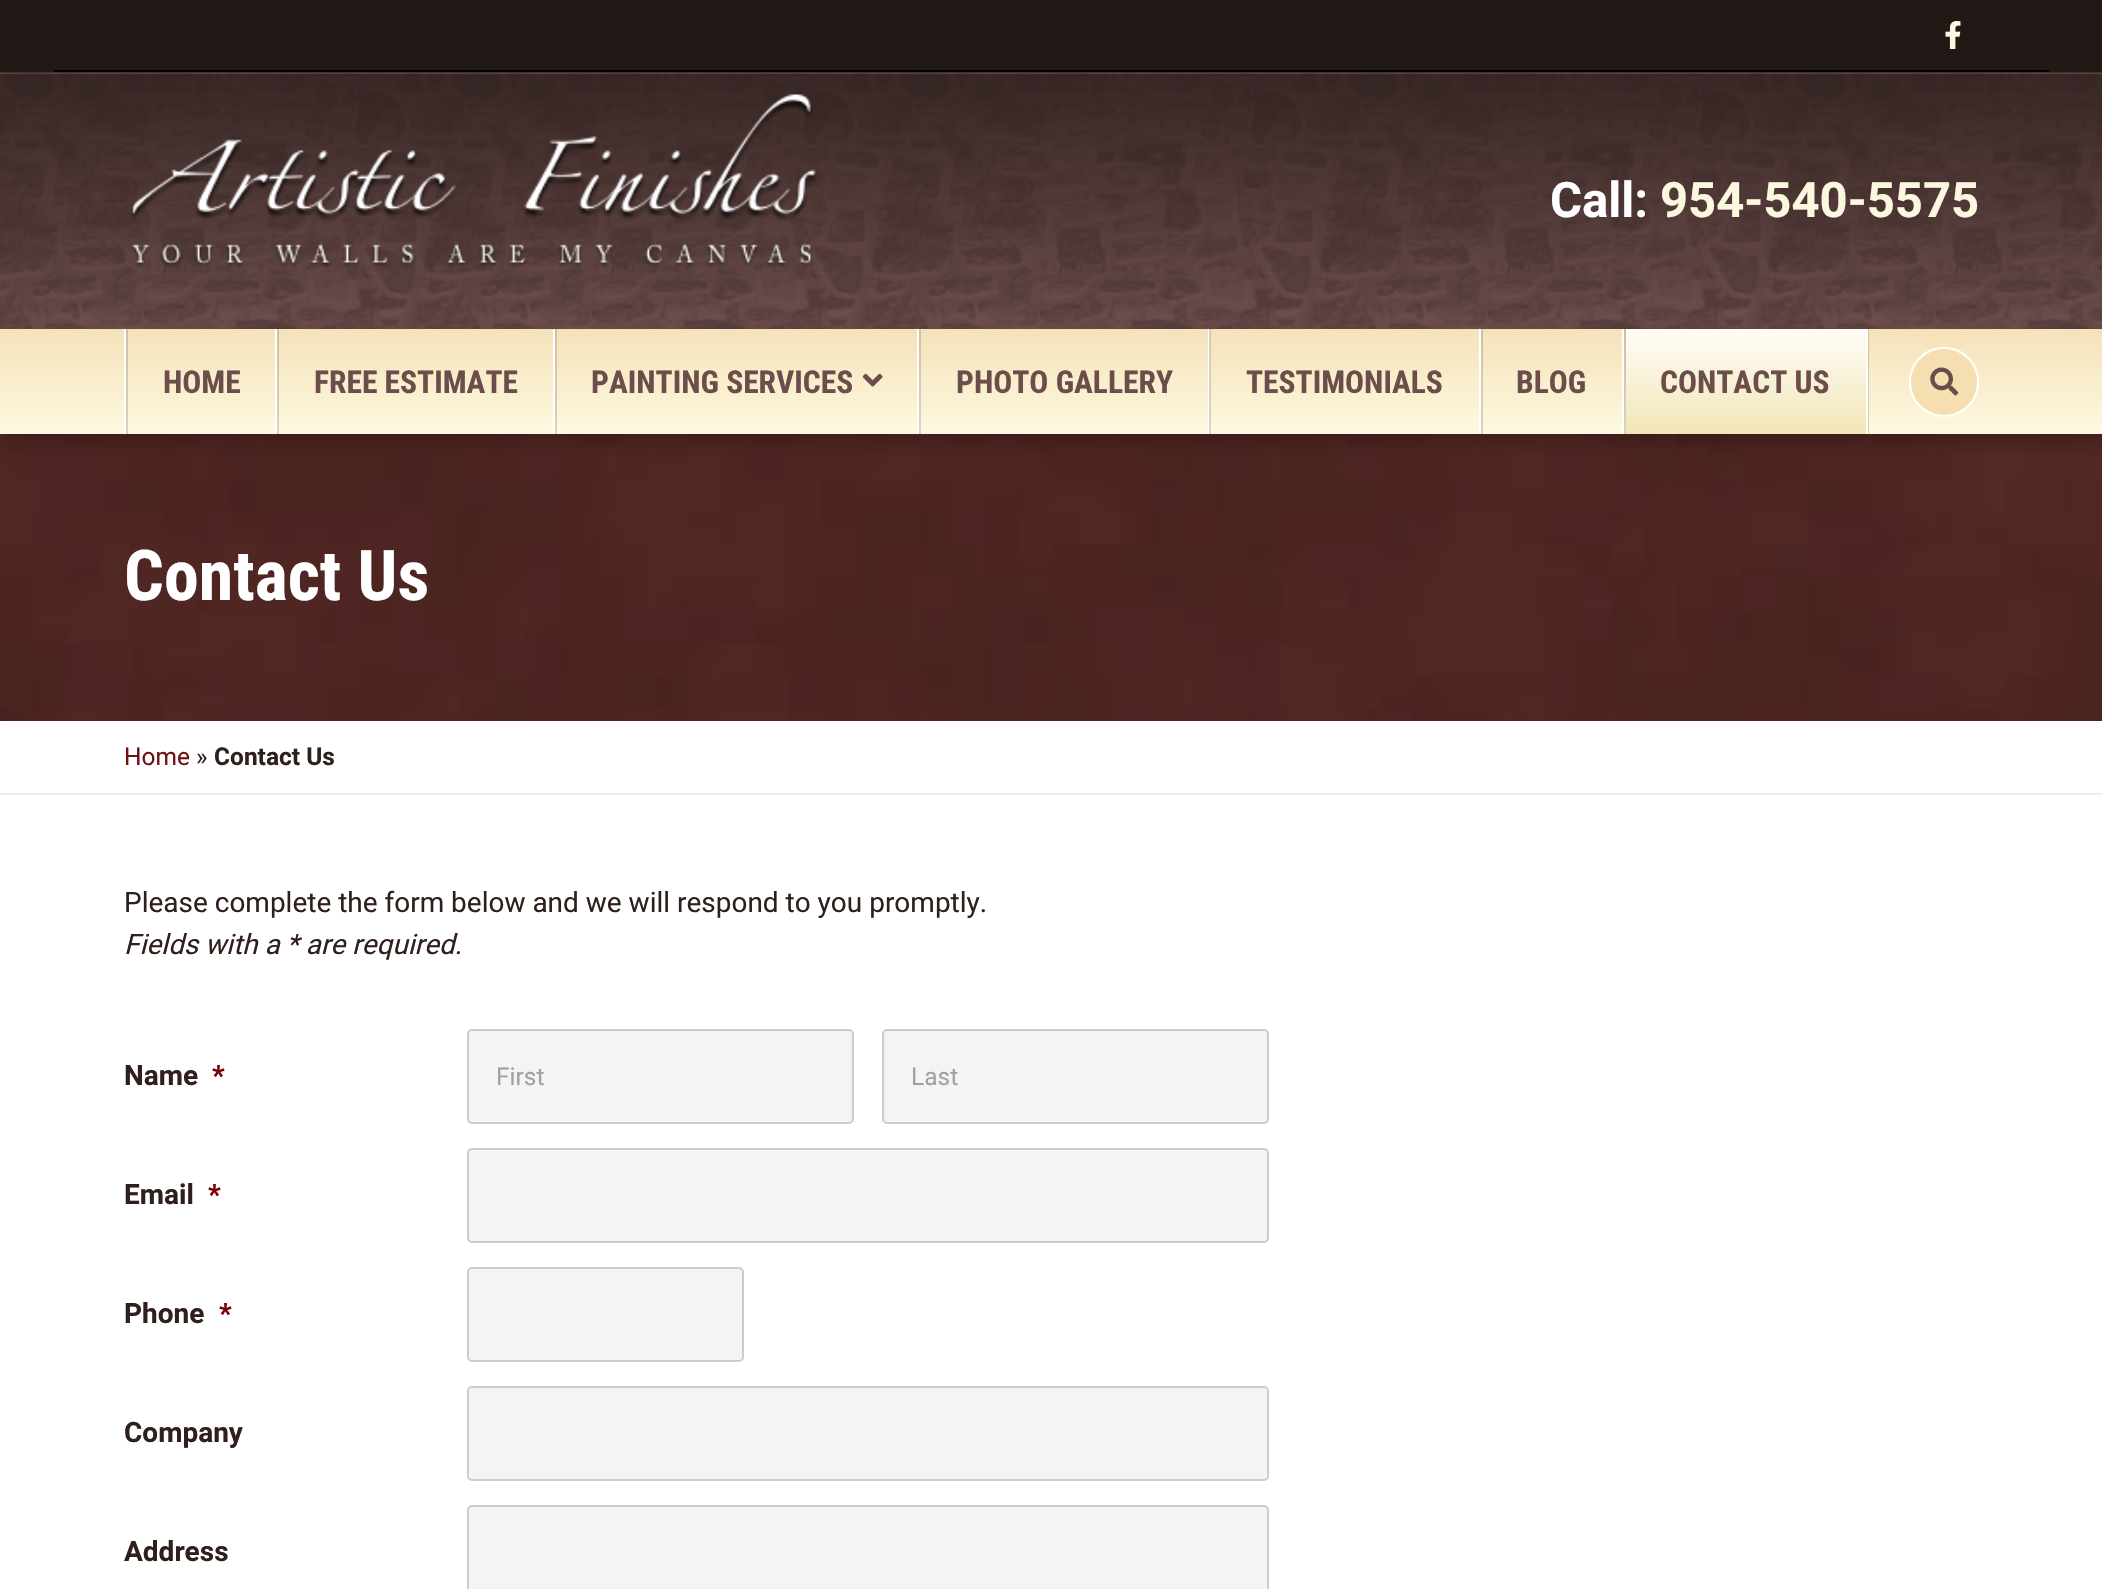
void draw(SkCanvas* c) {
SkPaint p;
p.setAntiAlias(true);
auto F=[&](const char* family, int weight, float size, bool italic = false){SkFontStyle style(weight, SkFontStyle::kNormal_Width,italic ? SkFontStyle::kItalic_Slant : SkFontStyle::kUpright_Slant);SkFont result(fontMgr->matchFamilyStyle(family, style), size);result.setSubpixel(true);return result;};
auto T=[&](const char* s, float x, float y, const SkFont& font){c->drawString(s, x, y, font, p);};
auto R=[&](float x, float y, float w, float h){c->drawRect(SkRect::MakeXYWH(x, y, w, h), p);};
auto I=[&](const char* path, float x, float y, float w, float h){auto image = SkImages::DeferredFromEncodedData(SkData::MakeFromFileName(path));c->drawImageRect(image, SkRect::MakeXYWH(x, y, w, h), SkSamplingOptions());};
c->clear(0xffffffff);
p.setColor(0xff221916);
R(0,0,2102,72);
p.setColor(0xff3f352d);
R(0,72,2102,2);
p.setColor(0xff000000);
R(54,70,1995,2);
I("1.png",1945,21,16,28);
I("2.png",0,73,2102,256);
I("3.png",130,94,687,173);
auto f1 = F("Roboto",700,49);
p.setColor(0xffffffff);
T("Call:",1550,217,f1);
p.setColor(0xfffcf8e0);
T("954-540-5575",1660,217,f1);
I("6.png",0,434,2102,287);
p.setColor(0x33000000);
p.setMaskFilter(SkMaskFilter::MakeBlur(kNormal_SkBlurStyle, 9));
c->drawRect(SkRect::MakeXYWH(0,338,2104,105),p);
p.setMaskFilter(nullptr);
{
const SkColor colors[] = {0xfff5e2ba,0xfffdf9e0};
const float stops[] = {.01,1};
const SkPoint ends[] = {{1052,329}, {1052,434}};
p.setShader(SkGradientShader::MakeLinear(ends, colors, stops, 2, SkTileMode::kClamp));
p.setAlpha(255);
}
R(0,329,2102,105);
p.setShader(nullptr);
p.setColor(0x26000000);
R(1868,329,1,105);
p.setColor(0xffffffff);
R(124,329,2,105);
R(275,329,2,105);
p.setColor(0x26000000);
R(126,329,2,105);
auto f2 = F("Roboto Condensed",700,31.5);
p.setColor(0xff6c4d4b);
T("HOME",163,393,f2);
p.setColor(0xffffffff);
R(553,329,2,105);
p.setColor(0x26000000);
R(277,329,2,105);
p.setColor(0xff6c4d4b);
T("FREE ESTIMATE",314,393,f2);
p.setColor(0xffffffff);
R(917,329,2,105);
p.setColor(0x26000000);
R(555,329,2,105);
p.setColor(0xff6c4d4b);
T("PAINTING SERVICES",591,393,f2);
I("4.png",862,373,21,14);
p.setColor(0xffffffff);
R(1208,329,2,105);
p.setColor(0x26000000);
R(919,329,2,105);
p.setColor(0xff6c4d4b);
T("PHOTO GALLERY",956,393,f2);
p.setColor(0xffffffff);
R(1479,329,2,105);
p.setColor(0x26000000);
R(1209,329,2,105);
p.setColor(0xff6c4d4b);
T("TESTIMONIALS",1246,393,f2);
p.setColor(0xffffffff);
R(1622,329,2,105);
p.setColor(0x26000000);
R(1481,329,2,105);
p.setColor(0xff6c4d4b);
T("BLOG",1516,393,f2);
p.setColor(0xffffffff);
R(1866,329,2,105);
p.setColor(0x26000000);
R(1624,329,2,105);
{
const SkColor colors[] = {0xfffefcf7,0xfff2e6b7};
const float stops[] = {.01,1};
const SkPoint ends[] = {{1746,329}, {1746,434}};
p.setShader(SkGradientShader::MakeLinear(ends, colors, stops, 2, SkTileMode::kClamp));
p.setAlpha(255);
}
R(1626,329,240,105);
p.setShader(nullptr);
p.setColor(0xff6c4d4b);
T("CONTACT US",1660,393,f2);
p.setStroke(true);
p.setStrokeWidth(2);
p.setColor(0xffffffff);
c->drawCircle(1944,382,34,p);
p.setStroke(false);
p.setColor(0xfff5dfb0);
c->drawCircle(1944,382,34,p);
p.setStroke(true);
p.setColor(0xffffffff);
c->drawCircle(1944,382,34,p);
I("5.png",1930,367,29,29);
auto f3 = F("Roboto Condensed",700,70);
p.setStroke(false);
T("Contact Us",124,600,f3);
p.setColor(0xffeeeeee);
R(0,793,2102,2);
auto f4 = F("Roboto",400,24.5);
p.setColor(0xff6e1117);
T("Home",124,765,f4);
p.setColor(0xff2f201d);
T("»",196,765,f4);
auto f5 = F("Roboto",700,24.5);
T("Contact Us",214,765,f5);
auto f6 = F("Roboto",400,28);
T("Please complete the form below and we will respond to you promptly.",124,912,f6);
auto f7 = F("Roboto",400,28,true);
T("Fields with a * are required.",124,954,f7);
auto f8 = F("Roboto",700,28);
T("Name",124,1085,f8);
p.setColor(0xff790000);
T("*",212,1085,f8);
p.setColor(0xfff4f4f4);
c->drawRoundRect(SkRect::MakeXYWH(468,1030,385,93),4,4,p);
p.setStroke(true);
p.setColor(0xffcccccc);
c->drawRoundRect(SkRect::MakeXYWH(468,1030,385,93),4,4,p);
p.setStroke(false);
p.setColor(0xffa59f9e);
T("First",496,1085,f4);
p.setColor(0xfff4f4f4);
c->drawRoundRect(SkRect::MakeXYWH(883,1030,385,93),4,4,p);
p.setStroke(true);
p.setColor(0xffcccccc);
c->drawRoundRect(SkRect::MakeXYWH(883,1030,385,93),4,4,p);
p.setStroke(false);
p.setColor(0xffa59f9e);
T("Last",911,1085,f4);
p.setColor(0xff2f201d);
T("Email",124,1204,f8);
p.setColor(0xff790000);
T("*",208,1204,f8);
p.setColor(0xfff4f4f4);
c->drawRoundRect(SkRect::MakeXYWH(468,1149,800,93),4,4,p);
p.setStroke(true);
p.setColor(0xffcccccc);
c->drawRoundRect(SkRect::MakeXYWH(468,1149,800,93),4,4,p);
p.setStroke(false);
p.setColor(0xff2f201d);
T("Phone",124,1323,f8);
p.setColor(0xff790000);
T("*",219,1323,f8);
p.setColor(0xfff4f4f4);
c->drawRoundRect(SkRect::MakeXYWH(468,1268,275,93),4,4,p);
p.setStroke(true);
p.setColor(0xffcccccc);
c->drawRoundRect(SkRect::MakeXYWH(468,1268,275,93),4,4,p);
p.setStroke(false);
p.setColor(0xff2f201d);
T("Company",124,1442,f8);
p.setColor(0xfff4f4f4);
c->drawRoundRect(SkRect::MakeXYWH(468,1387,800,93),4,4,p);
p.setStroke(true);
p.setColor(0xffcccccc);
c->drawRoundRect(SkRect::MakeXYWH(468,1387,800,93),4,4,p);
p.setStroke(false);
p.setColor(0xff2f201d);
T("Address",124,1561,f8);
p.setColor(0xfff4f4f4);
c->drawRoundRect(SkRect::MakeXYWH(468,1506,800,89),4,4,p);
p.setStroke(true);
p.setColor(0xffcccccc);
c->drawRoundRect(SkRect::MakeXYWH(468,1506,800,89),4,4,p);
}
